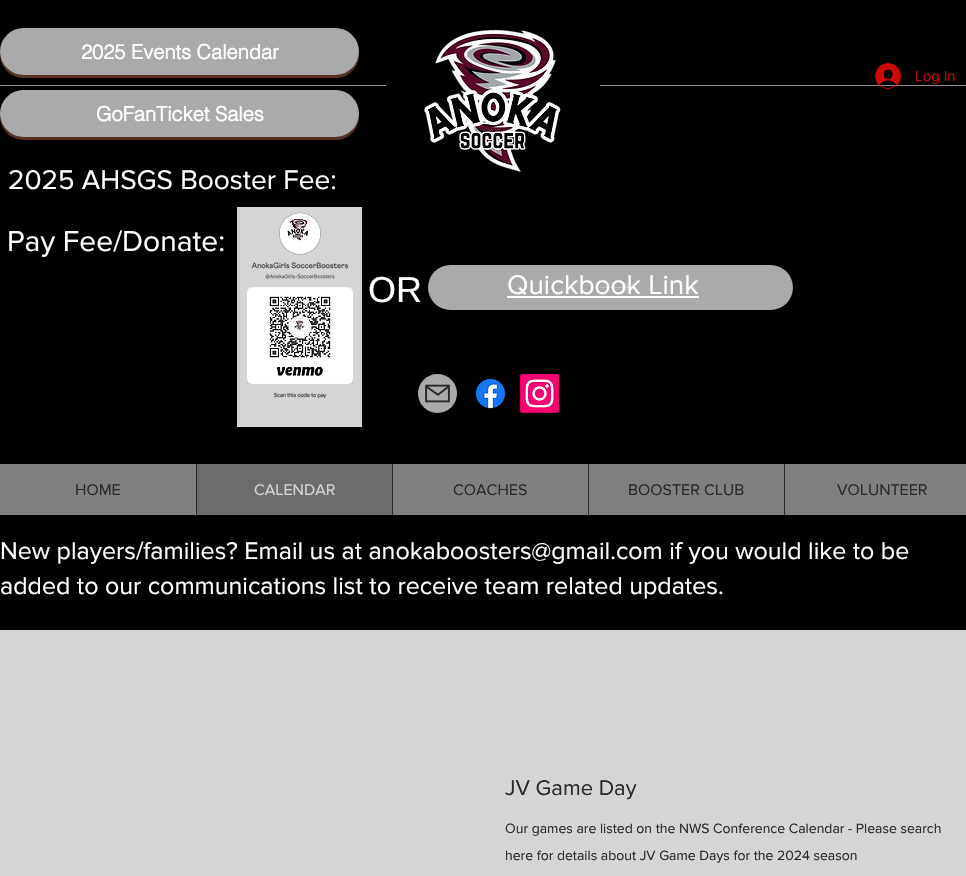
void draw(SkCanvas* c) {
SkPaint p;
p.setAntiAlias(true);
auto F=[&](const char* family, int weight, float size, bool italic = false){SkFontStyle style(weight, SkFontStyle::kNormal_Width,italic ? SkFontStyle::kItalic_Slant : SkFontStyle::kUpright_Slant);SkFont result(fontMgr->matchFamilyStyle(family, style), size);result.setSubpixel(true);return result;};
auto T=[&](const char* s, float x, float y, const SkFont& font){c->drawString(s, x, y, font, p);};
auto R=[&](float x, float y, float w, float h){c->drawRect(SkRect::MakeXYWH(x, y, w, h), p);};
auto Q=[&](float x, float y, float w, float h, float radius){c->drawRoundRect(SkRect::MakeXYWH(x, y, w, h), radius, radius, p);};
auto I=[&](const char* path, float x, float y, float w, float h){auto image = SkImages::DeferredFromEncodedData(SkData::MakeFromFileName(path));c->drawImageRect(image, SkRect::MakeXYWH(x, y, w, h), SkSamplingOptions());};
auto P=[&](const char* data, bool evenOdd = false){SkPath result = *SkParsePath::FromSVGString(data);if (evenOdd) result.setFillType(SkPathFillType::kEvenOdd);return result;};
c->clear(0xff000000);
p.setColor(0xff593122);
c->drawPath(P("M0 53c-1 13 10 25 24 25h312c13 0 24-12 23-25c-1 12-11 22-23 22h-312c-13 0-23-10-24-22z"),p);
p.setColor(0xffaaaaaa);
Q(0,28,359,47,23.5);
auto f1 = F("helvetica",700,20);
p.setColor(0xffffffff);
T("2025 Events Calendar",81,59,f1);
I("1.png",424,29,137,143);
p.setColor(0xff8d929a);
R(600,85,366,1);
I("2.png",875,63,26,26);
auto f2 = F("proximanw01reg",400,15);
p.setColor(0xffcc0808);
T("Log In",915,81,f2);
p.setColor(0xff8d929a);
R(0,85,386,1);
p.setColor(0xff593122);
c->drawPath(P("M0 115c-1 13 10 25 24 25h312c13 0 24-12 23-25c-1 12-11 22-23 22h-312c-13 0-23-10-24-22z"),p);
p.setColor(0xffaaaaaa);
Q(0,90,359,47,23.5);
p.setColor(0xffffffff);
T("GoFanTicket Sales",96,121,f1);
auto f3 = F("proximanw01reg",400,28);
T("2025 AHSGS Booster Fee:",8,189,f3);
auto f4 = F("proximanw01reg",400,30);
T("Pay Fee/Donate:",7,251,f4);
p.setColor(0xffd5d5d5);
R(237,207,125,220);
I("3.png",247,212,106,187);
p.setColor(0xffaaaaaa);
Q(428,265,365,45,22.5);
p.setColor(0xffd5d5d5);
c->drawPath(P("M623.5 282l-.5 .5l5 5h-32.5v.5h32.5l-5 4.5l.5 .5l5.5-5.5z"),p);
auto f5 = F("Liberation Sans",400,36);
p.setColor(0xffffffff);
T("OR",368,302,f5);
T("Quickbook Link",507,294,f3);
R(507,296,192,2);
p.setColor(0xffaaaaaa);
c->drawCircle(437.5,393.5,19.5,p);
I("4.png",425,384,25,19);
I("5.png",475,378,31,31);
I("6.png",520,374,39,39);
p.setColor(0xff808080);
R(0,464,966,51);
auto f6 = F("proximanw01reg",400,16);
p.setColor(0xff2a2a2a);
T("HOME",75,495,f6);
p.setColor(0xff6c6c6c);
R(197,464,195,51);
p.setColor(0xff2a2a2a);
R(196,464,1,51);
p.setColor(0xffd5d5d5);
T("CALENDAR",254,495,f6);
p.setColor(0xff2a2a2a);
R(392,464,1,51);
T("COACHES",453,495,f6);
R(588,464,1,51);
T("BOOSTER CLUB",628,495,f6);
R(784,464,1,51);
T("VOLUNTEER",837,495,f6);
auto f7 = F("proximanw01reg",400,25);
p.setColor(0xffffffff);
T("New players/families? Email us at anokaboosters@gmail.com if you would like to be",0,559,f7);
T("added to our communications list to receive team related updates.",0,594,f7);
p.setColor(0xffd5d5d5);
R(0,630,966,246);
auto f8 = F("proximanw01reg",400,22);
p.setColor(0xff2a2a2a);
T("JV Game Day",505,795,f8);
auto f9 = F("proximanw01reg",400,14);
T("Our games are listed on the NWS Conference Calendar - Please search",505,833,f9);
T("here for details about JV Game Days for the 2024 season",505,860,f9);
}
